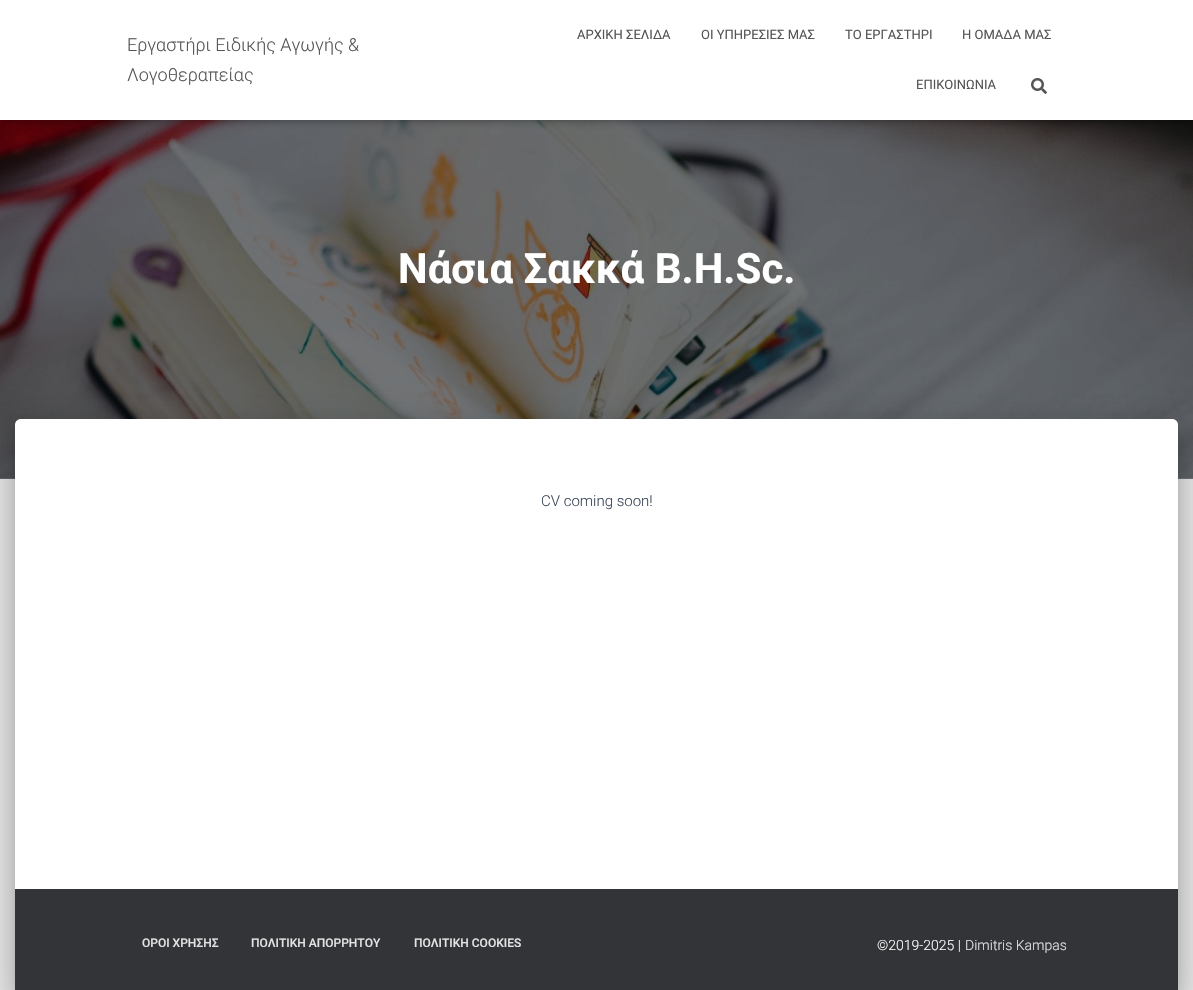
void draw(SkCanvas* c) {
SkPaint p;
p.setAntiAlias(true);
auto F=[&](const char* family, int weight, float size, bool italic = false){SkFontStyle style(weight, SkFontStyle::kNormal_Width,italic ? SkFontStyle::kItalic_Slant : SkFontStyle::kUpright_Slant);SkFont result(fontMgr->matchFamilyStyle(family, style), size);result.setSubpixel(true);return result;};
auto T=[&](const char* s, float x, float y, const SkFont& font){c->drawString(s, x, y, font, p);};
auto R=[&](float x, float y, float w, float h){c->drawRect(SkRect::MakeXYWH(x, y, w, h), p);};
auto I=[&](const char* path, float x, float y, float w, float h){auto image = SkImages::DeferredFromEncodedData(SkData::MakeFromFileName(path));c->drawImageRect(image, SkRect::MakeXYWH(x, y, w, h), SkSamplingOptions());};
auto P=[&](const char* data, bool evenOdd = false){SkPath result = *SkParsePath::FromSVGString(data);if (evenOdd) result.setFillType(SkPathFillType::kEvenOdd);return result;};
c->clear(0xffe5e5e5);
I("2.png",0,120,1193,359);
p.setColor(0x1a000000);
p.setMaskFilter(SkMaskFilter::MakeBlur(kNormal_SkBlurStyle, 2.5));
c->drawRect(SkRect::MakeXYWH(2,6,1189,116),p);
p.setMaskFilter(nullptr);
p.setColor(0x1f000000);
p.setMaskFilter(SkMaskFilter::MakeBlur(kNormal_SkBlurStyle, 5));
c->drawRect(SkRect::MakeXYWH(0,1,1193,120),p);
p.setMaskFilter(nullptr);
p.setColor(0x6b000000);
p.setMaskFilter(SkMaskFilter::MakeBlur(kNormal_SkBlurStyle, 5));
c->drawRect(SkRect::MakeXYWH(6,7,1181,108),p);
p.setMaskFilter(nullptr);
p.setColor(0xffffffff);
R(0,0,1193,120);
auto f1 = F("Roboto",300,18);
p.setColor(0xff555555);
T("Εργαστήρι Ειδικής Αγωγής &",127,51,f1);
T("Λογοθεραπείας",127,81,f1);
auto f2 = F("Roboto",400,13);
T("ΑΡΧΙΚΗ ΣΕΛΙΔΑ",577,39,f2);
T("ΟΙ ΥΠΗΡΕΣΙΕΣ ΜΑΣ",701,39,f2);
T("ΤΟ ΕΡΓΑΣΤΗΡΙ",845,39,f2);
T("Η ΟΜΑΔΑ ΜΑΣ",962,39,f2);
T("ΕΠΙΚΟΙΝΩΝΙΑ",916,89,f2);
I("1.png",1031,78,16,16);
auto f3 = F("Roboto",700,42);
p.setColor(0xffffffff);
T("Νάσια Σακκά B.H.Sc.",398,283,f3);
p.setColor(0x33000000);
p.setMaskFilter(SkMaskFilter::MakeBlur(kNormal_SkBlurStyle, 5));
c->drawRoundRect(SkRect::MakeXYWH(20,432,1153,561),1,1,p);
p.setMaskFilter(nullptr);
p.setColor(0x1f000000);
p.setMaskFilter(SkMaskFilter::MakeBlur(kNormal_SkBlurStyle, 15));
c->drawRoundRect(SkRect::MakeXYWH(10,420,1173,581),11,11,p);
p.setMaskFilter(nullptr);
p.setColor(0x24000000);
p.setMaskFilter(SkMaskFilter::MakeBlur(kNormal_SkBlurStyle, 12));
c->drawRoundRect(SkRect::MakeXYWH(13,433,1167,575),8,8,p);
p.setMaskFilter(nullptr);
p.setColor(0xffffffff);
c->drawPath(P("M21 419h1151c3.5 0 6 2.5 6 6v565h-1163v-565c0-3.5 2.5-6 6-6z"),p);
auto f4 = F("Roboto",300,15);
p.setColor(0xff3c4858);
T("CV coming soon!",541,506,f4);
p.setColor(0xff323437);
R(15,889,1163,101);
auto f5 = F("Roboto",500,12);
p.setColor(0xffe2e3e3);
T("ΟΡΟΙ ΧΡΗΣΗΣ",142,947,f5);
T("ΠΟΛΙΤΙΚΗ ΑΠΟΡΡΗΤΟΥ",251,947,f5);
T("ΠΟΛΙΤΙΚΗ COOKIES",414,947,f5);
auto f6 = F("Roboto",300,14);
p.setColor(0xffffffff);
T("©2019-2025 |",877,950,f6);
p.setColor(0xffe2e3e3);
T("Dimitris Kampas",965,950,f6);
}
